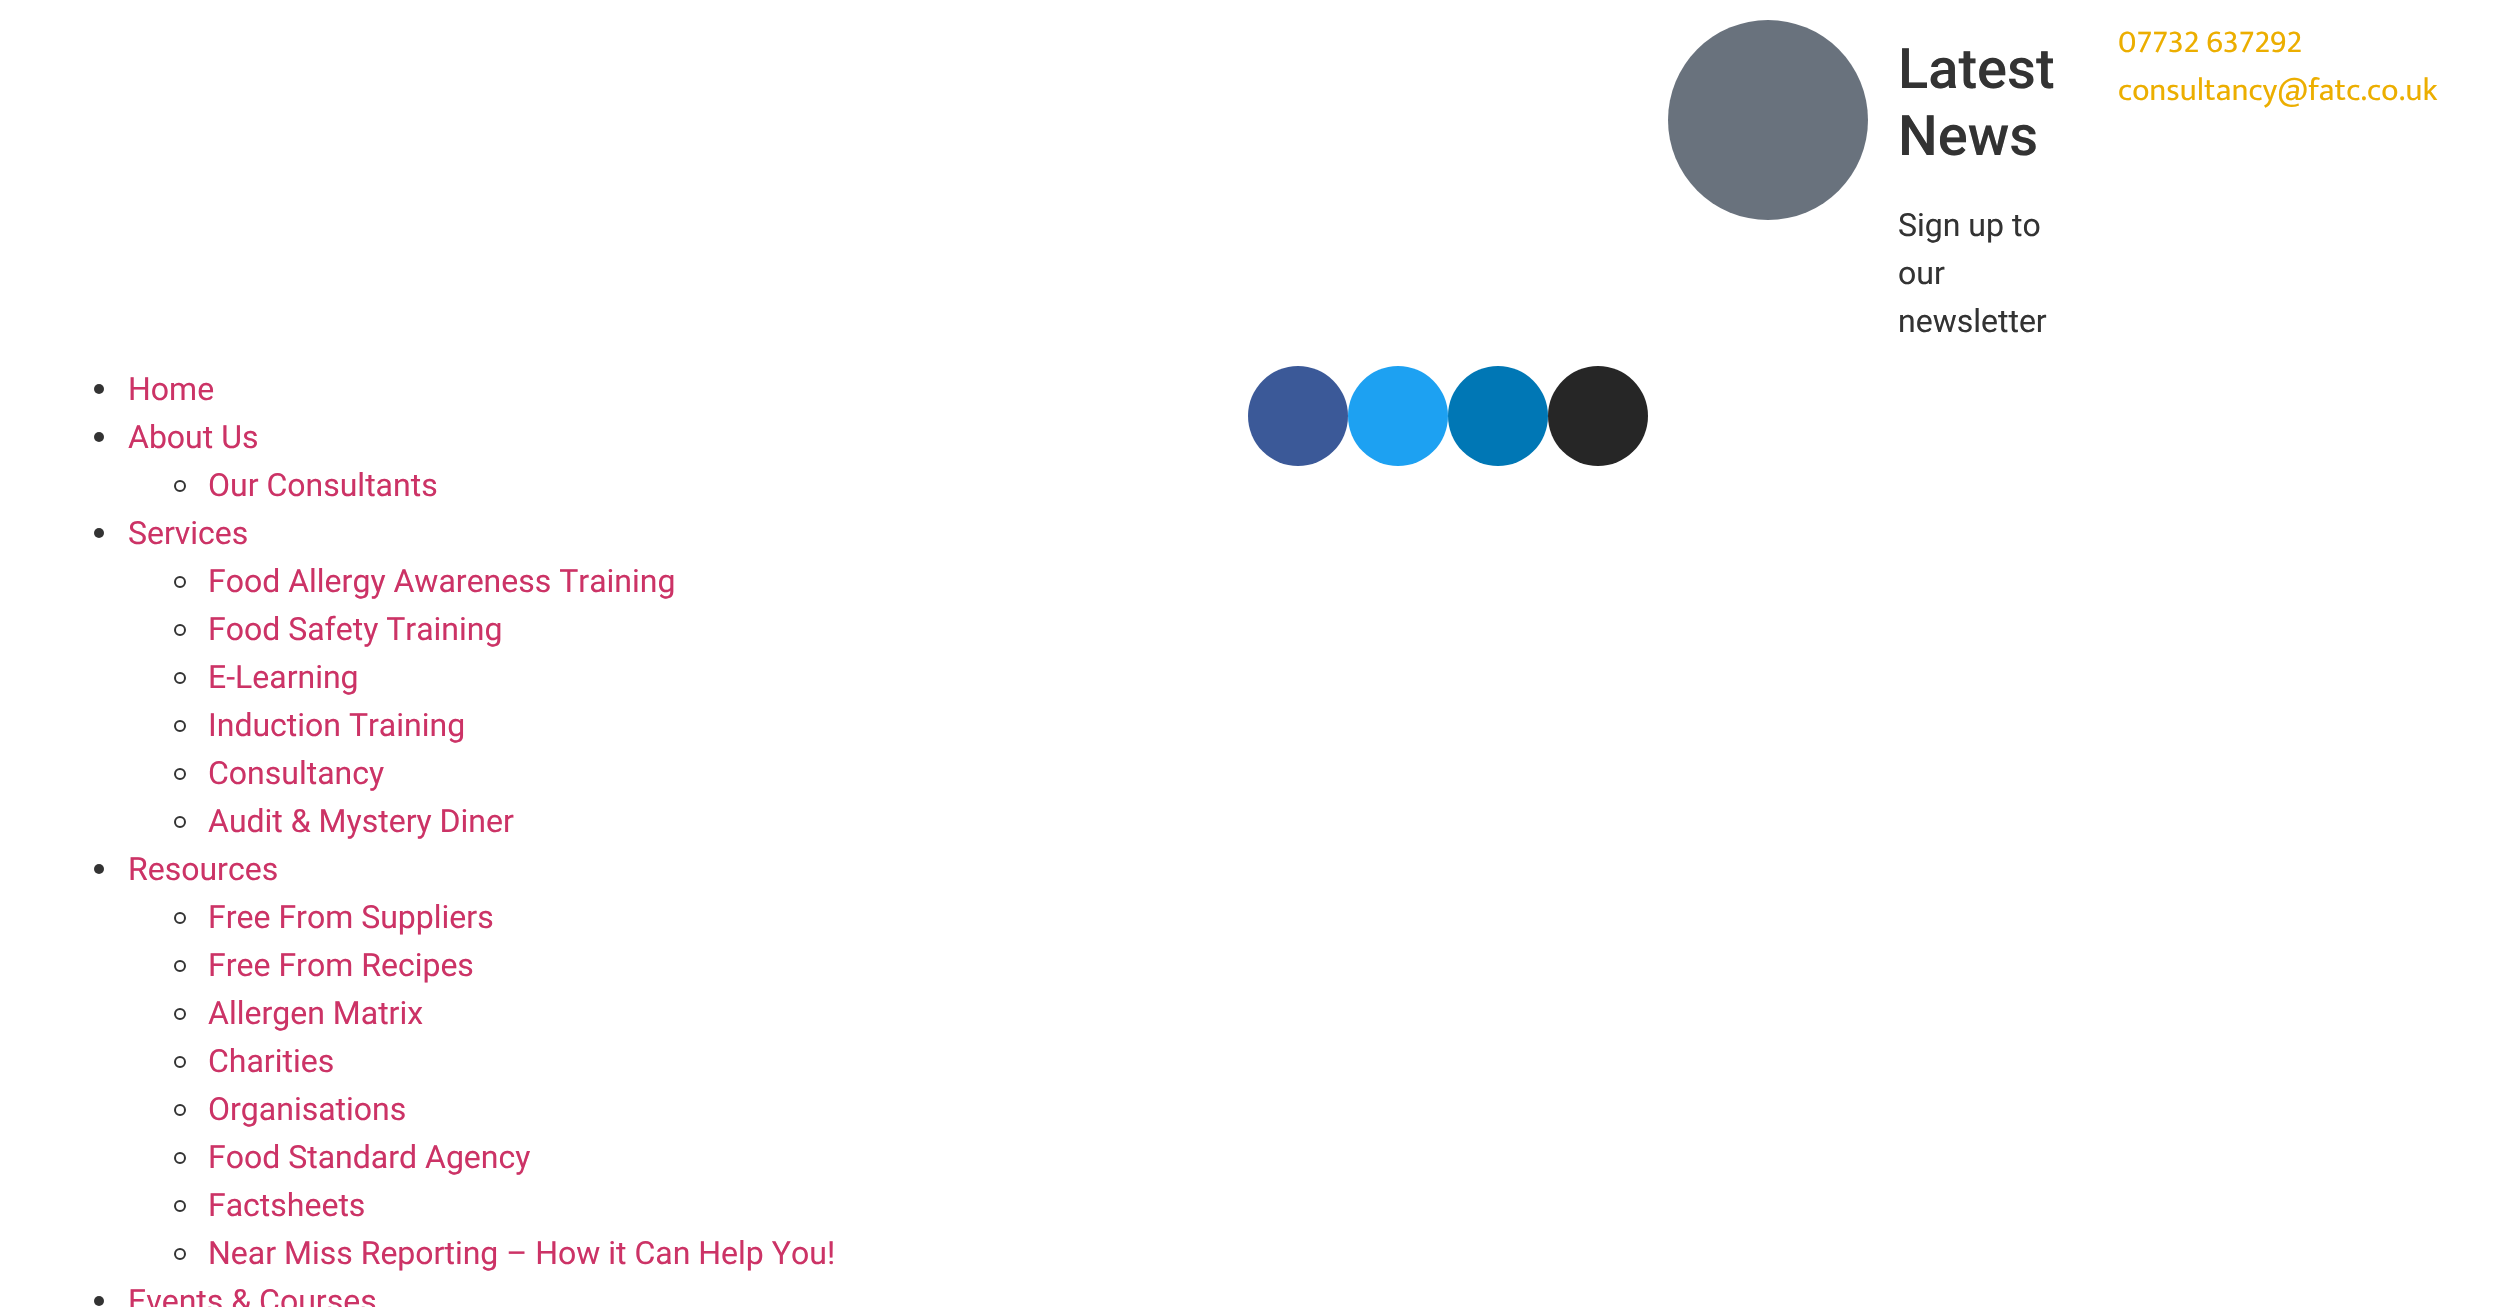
void draw(SkCanvas* c) {
SkPaint p;
p.setAntiAlias(true);
auto F=[&](const char* family, int weight, float size, bool italic = false){SkFontStyle style(weight, SkFontStyle::kNormal_Width,italic ? SkFontStyle::kItalic_Slant : SkFontStyle::kUpright_Slant);SkFont result(fontMgr->matchFamilyStyle(family, style), size);result.setSubpixel(true);return result;};
auto T=[&](const char* s, float x, float y, const SkFont& font){c->drawString(s, x, y, font, p);};
c->clear(0xffffffff);
p.setColor(0xff69727d);
c->drawCircle(1768,120,100,p);
auto f1 = F("Roboto",500,56);
p.setColor(0xff333333);
T("Latest",1898,88,f1);
T("News",1898,155,f1);
auto f2 = F("Roboto",400,32);
T("Sign up to",1898,236,f2);
T("our",1898,284,f2);
T("newsletter",1898,332,f2);
auto f3 = F("Mukta",400,32);
p.setColor(0xffecae00);
T("07732 637292",2118,52,f3);
T("consultancy@fatc.co.uk",2118,100,f3);
p.setColor(0xff333333);
c->drawCircle(99,389,5,p);
p.setColor(0xffcc3366);
T("Home",128,400,f2);
p.setColor(0xff333333);
c->drawCircle(99,437,5,p);
p.setColor(0xffcc3366);
T("About Us",128,448,f2);
p.setStroke(true);
p.setStrokeWidth(2);
p.setColor(0xff333333);
c->drawCircle(180,486,5,p);
p.setStroke(false);
p.setColor(0xffcc3366);
T("Our Consultants",208,496,f2);
p.setColor(0xff333333);
c->drawCircle(99,533,5,p);
p.setColor(0xffcc3366);
T("Services",128,544,f2);
p.setStroke(true);
p.setColor(0xff333333);
c->drawCircle(180,582,5,p);
p.setStroke(false);
p.setColor(0xffcc3366);
T("Food Allergy Awareness Training",208,592,f2);
p.setStroke(true);
p.setColor(0xff333333);
c->drawCircle(180,630,5,p);
p.setStroke(false);
p.setColor(0xffcc3366);
T("Food Safety Training",208,640,f2);
p.setStroke(true);
p.setColor(0xff333333);
c->drawCircle(180,678,5,p);
p.setStroke(false);
p.setColor(0xffcc3366);
T("E-Learning",208,688,f2);
p.setStroke(true);
p.setColor(0xff333333);
c->drawCircle(180,726,5,p);
p.setStroke(false);
p.setColor(0xffcc3366);
T("Induction Training",208,736,f2);
p.setStroke(true);
p.setColor(0xff333333);
c->drawCircle(180,774,5,p);
p.setStroke(false);
p.setColor(0xffcc3366);
T("Consultancy",208,784,f2);
p.setStroke(true);
p.setColor(0xff333333);
c->drawCircle(180,822,5,p);
p.setStroke(false);
p.setColor(0xffcc3366);
T("Audit & Mystery Diner",208,832,f2);
p.setColor(0xff333333);
c->drawCircle(99,869,5,p);
p.setColor(0xffcc3366);
T("Resources",128,880,f2);
p.setStroke(true);
p.setColor(0xff333333);
c->drawCircle(180,918,5,p);
p.setStroke(false);
p.setColor(0xffcc3366);
T("Free From Suppliers",208,928,f2);
p.setStroke(true);
p.setColor(0xff333333);
c->drawCircle(180,966,5,p);
p.setStroke(false);
p.setColor(0xffcc3366);
T("Free From Recipes",208,976,f2);
p.setStroke(true);
p.setColor(0xff333333);
c->drawCircle(180,1014,5,p);
p.setStroke(false);
p.setColor(0xffcc3366);
T("Allergen Matrix",208,1024,f2);
p.setStroke(true);
p.setColor(0xff333333);
c->drawCircle(180,1062,5,p);
p.setStroke(false);
p.setColor(0xffcc3366);
T("Charities",208,1072,f2);
p.setStroke(true);
p.setColor(0xff333333);
c->drawCircle(180,1110,5,p);
p.setStroke(false);
p.setColor(0xffcc3366);
T("Organisations",208,1120,f2);
p.setStroke(true);
p.setColor(0xff333333);
c->drawCircle(180,1158,5,p);
p.setStroke(false);
p.setColor(0xffcc3366);
T("Food Standard Agency",208,1168,f2);
p.setStroke(true);
p.setColor(0xff333333);
c->drawCircle(180,1206,5,p);
p.setStroke(false);
p.setColor(0xffcc3366);
T("Factsheets",208,1216,f2);
p.setStroke(true);
p.setColor(0xff333333);
c->drawCircle(180,1254,5,p);
p.setStroke(false);
p.setColor(0xffcc3366);
T("Near Miss Reporting – How it Can Help You!",208,1264,f2);
p.setColor(0xff333333);
c->drawCircle(99,1301,5,p);
p.setColor(0xffcc3366);
T("Events & Courses",128,1312,f2);
p.setColor(0xff3b5998);
c->drawCircle(1298,416,50,p);
p.setColor(0xff1da1f2);
c->drawCircle(1398,416,50,p);
p.setColor(0xff0077b5);
c->drawCircle(1498,416,50,p);
p.setColor(0xff262626);
c->drawCircle(1598,416,50,p);
}
